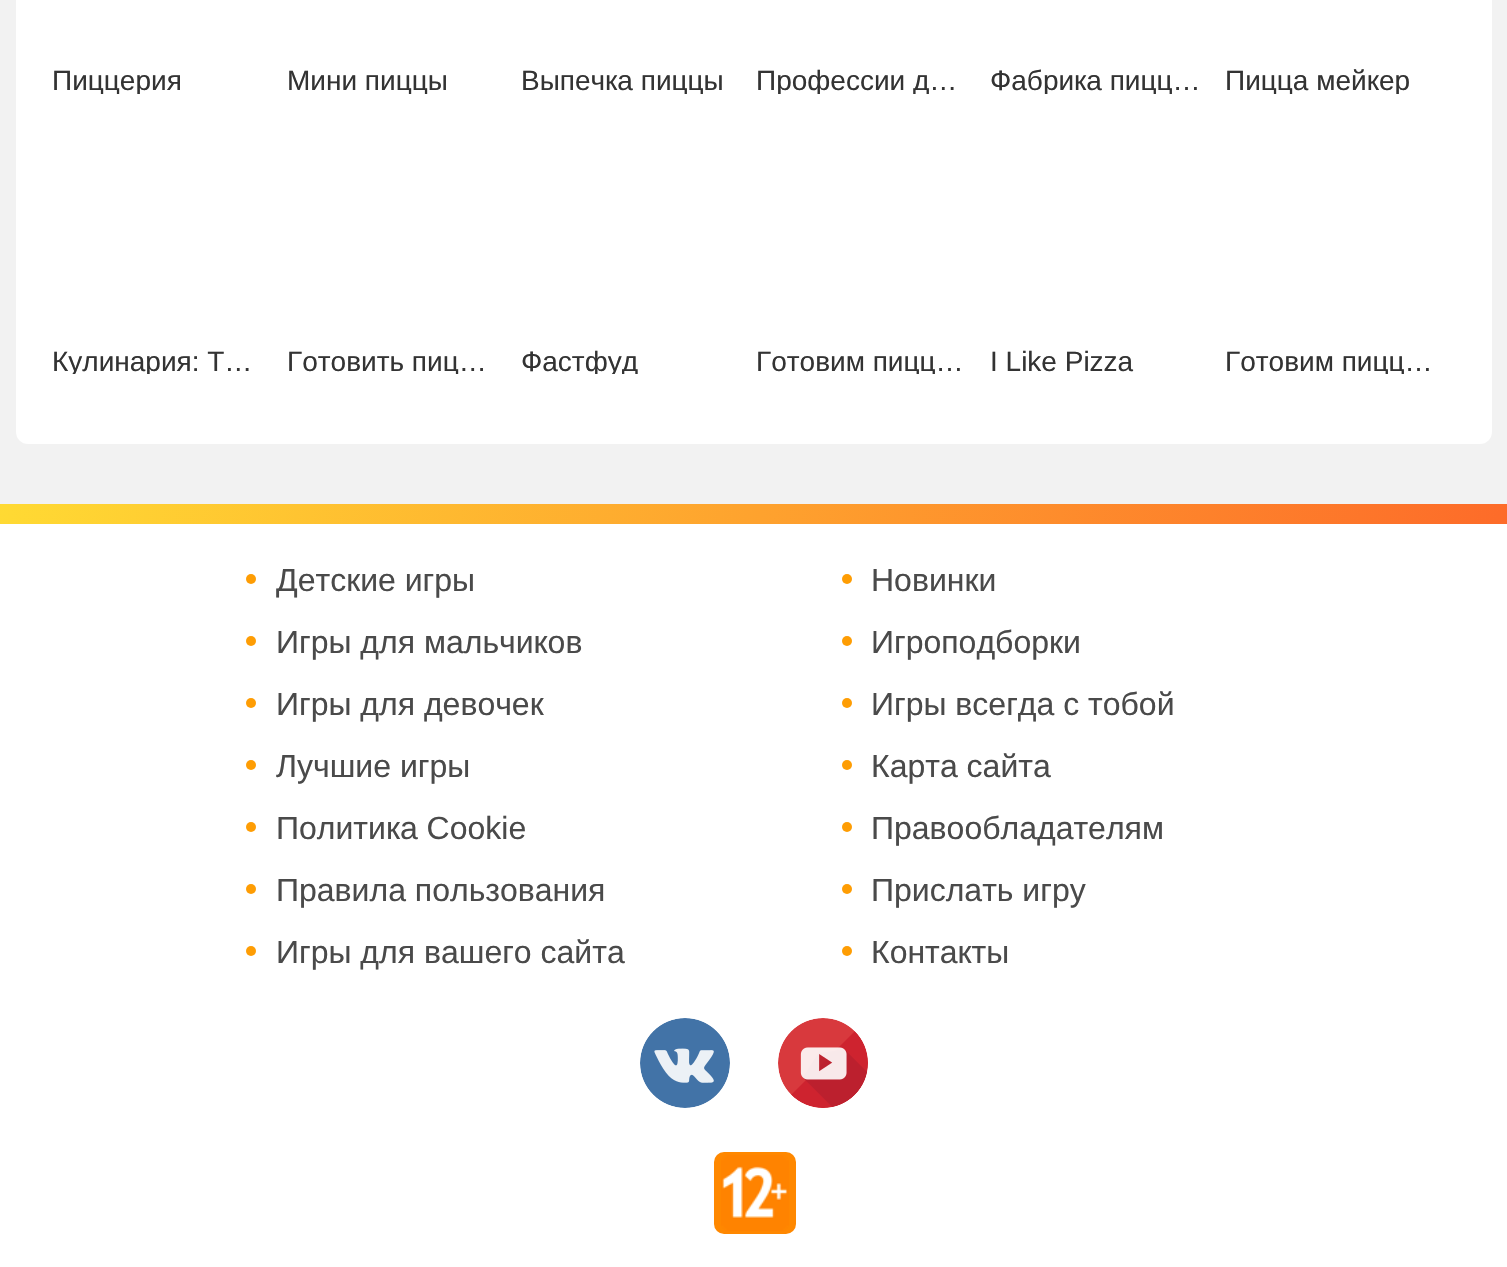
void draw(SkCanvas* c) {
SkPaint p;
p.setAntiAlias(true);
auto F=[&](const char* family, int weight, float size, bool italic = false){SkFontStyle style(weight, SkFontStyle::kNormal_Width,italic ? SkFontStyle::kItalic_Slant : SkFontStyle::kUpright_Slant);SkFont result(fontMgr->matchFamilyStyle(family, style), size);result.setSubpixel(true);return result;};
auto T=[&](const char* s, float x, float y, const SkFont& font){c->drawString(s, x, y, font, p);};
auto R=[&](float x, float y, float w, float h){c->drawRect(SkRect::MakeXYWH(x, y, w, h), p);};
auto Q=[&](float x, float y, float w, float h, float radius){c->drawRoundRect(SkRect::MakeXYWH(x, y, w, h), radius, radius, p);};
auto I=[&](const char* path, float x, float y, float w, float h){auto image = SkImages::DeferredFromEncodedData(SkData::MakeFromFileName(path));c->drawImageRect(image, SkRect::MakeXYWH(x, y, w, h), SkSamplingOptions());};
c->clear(0xfff2f2f2);
p.setColor(0xffffffff);
Q(16,-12,1476,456,12);
c->save();
c->clipRect(SkRect::MakeXYWH(52,66,212,28));
auto f1 = F("Liberation Sans",400,28);
p.setColor(0xff333333);
T("Пиццерия",52,90,f1);
c->restore();
c->save();
c->clipRect(SkRect::MakeXYWH(286,66,214,28));
T("Мини пиццы",287,90,f1);
c->restore();
c->save();
c->clipRect(SkRect::MakeXYWH(522,66,212,28));
T("Выпечка пиццы",521,90,f1);
c->restore();
c->save();
c->clipRect(SkRect::MakeXYWH(756,66,212,28));
T("Профессии д…",756,90,f1);
c->restore();
c->save();
c->clipRect(SkRect::MakeXYWH(990,66,214,28));
T("Фабрика пицц…",990,90,f1);
c->restore();
c->save();
c->clipRect(SkRect::MakeXYWH(1224,66,214,28));
T("Пицца мейкер",1225,90,f1);
c->restore();
c->save();
c->clipRect(SkRect::MakeXYWH(52,346,212,28));
T("Кулинария: Т…",52,371,f1);
c->restore();
c->save();
c->clipRect(SkRect::MakeXYWH(286,346,214,28));
T("Готовить пиц…",287,371,f1);
c->restore();
c->save();
c->clipRect(SkRect::MakeXYWH(522,346,212,28));
T("Фастфуд",521,371,f1);
c->restore();
c->save();
c->clipRect(SkRect::MakeXYWH(756,346,212,28));
T("Готовим пицц…",756,371,f1);
c->restore();
T("I Like Pizza",990,371,f1);
c->save();
c->clipRect(SkRect::MakeXYWH(1224,346,214,28));
T("Готовим пицц…",1225,371,f1);
c->restore();
p.setColor(0xffffffff);
R(0,524,1507,743);
I("1.png",0,504,1507,20);
p.setColor(0xfffe9d04);
c->drawCircle(251,579,5,p);
auto f2 = F("Liberation Sans",400,32);
p.setColor(0xff4a4a4a);
T("Детские игры",276,591,f2);
p.setColor(0xfffe9d04);
c->drawCircle(251,641,5,p);
p.setColor(0xff4a4a4a);
T("Игры для мальчиков",276,653,f2);
p.setColor(0xfffe9d04);
c->drawCircle(251,703,5,p);
p.setColor(0xff4a4a4a);
T("Игры для девочек",276,715,f2);
p.setColor(0xfffe9d04);
c->drawCircle(251,765,5,p);
p.setColor(0xff4a4a4a);
T("Лучшие игры",276,777,f2);
p.setColor(0xfffe9d04);
c->drawCircle(847,579,5,p);
p.setColor(0xff4a4a4a);
T("Новинки",871,591,f2);
p.setColor(0xfffe9d04);
c->drawCircle(847,641,5,p);
p.setColor(0xff4a4a4a);
T("Игроподборки",871,653,f2);
p.setColor(0xfffe9d04);
c->drawCircle(847,703,5,p);
p.setColor(0xff4a4a4a);
T("Игры всегда с тобой",871,715,f2);
p.setColor(0xfffe9d04);
c->drawCircle(847,765,5,p);
p.setColor(0xff4a4a4a);
T("Карта сайта",871,777,f2);
p.setColor(0xfffe9d04);
c->drawCircle(251,827,5,p);
p.setColor(0xff4a4a4a);
T("Политика Cookie",276,839,f2);
p.setColor(0xfffe9d04);
c->drawCircle(251,889,5,p);
p.setColor(0xff4a4a4a);
T("Правила пользования",276,901,f2);
p.setColor(0xfffe9d04);
c->drawCircle(251,951,5,p);
p.setColor(0xff4a4a4a);
T("Игры для вашего сайта",276,963,f2);
p.setColor(0xfffe9d04);
c->drawCircle(847,827,5,p);
p.setColor(0xff4a4a4a);
T("Правообладателям",871,839,f2);
p.setColor(0xfffe9d04);
c->drawCircle(847,889,5,p);
p.setColor(0xff4a4a4a);
T("Прислать игру",871,901,f2);
p.setColor(0xfffe9d04);
c->drawCircle(847,951,5,p);
p.setColor(0xff4a4a4a);
T("Контакты",871,963,f2);
I("2.png",640,1018,90,90);
I("3.png",778,1018,90,90);
I("4.png",714,1152,82,82);
}
